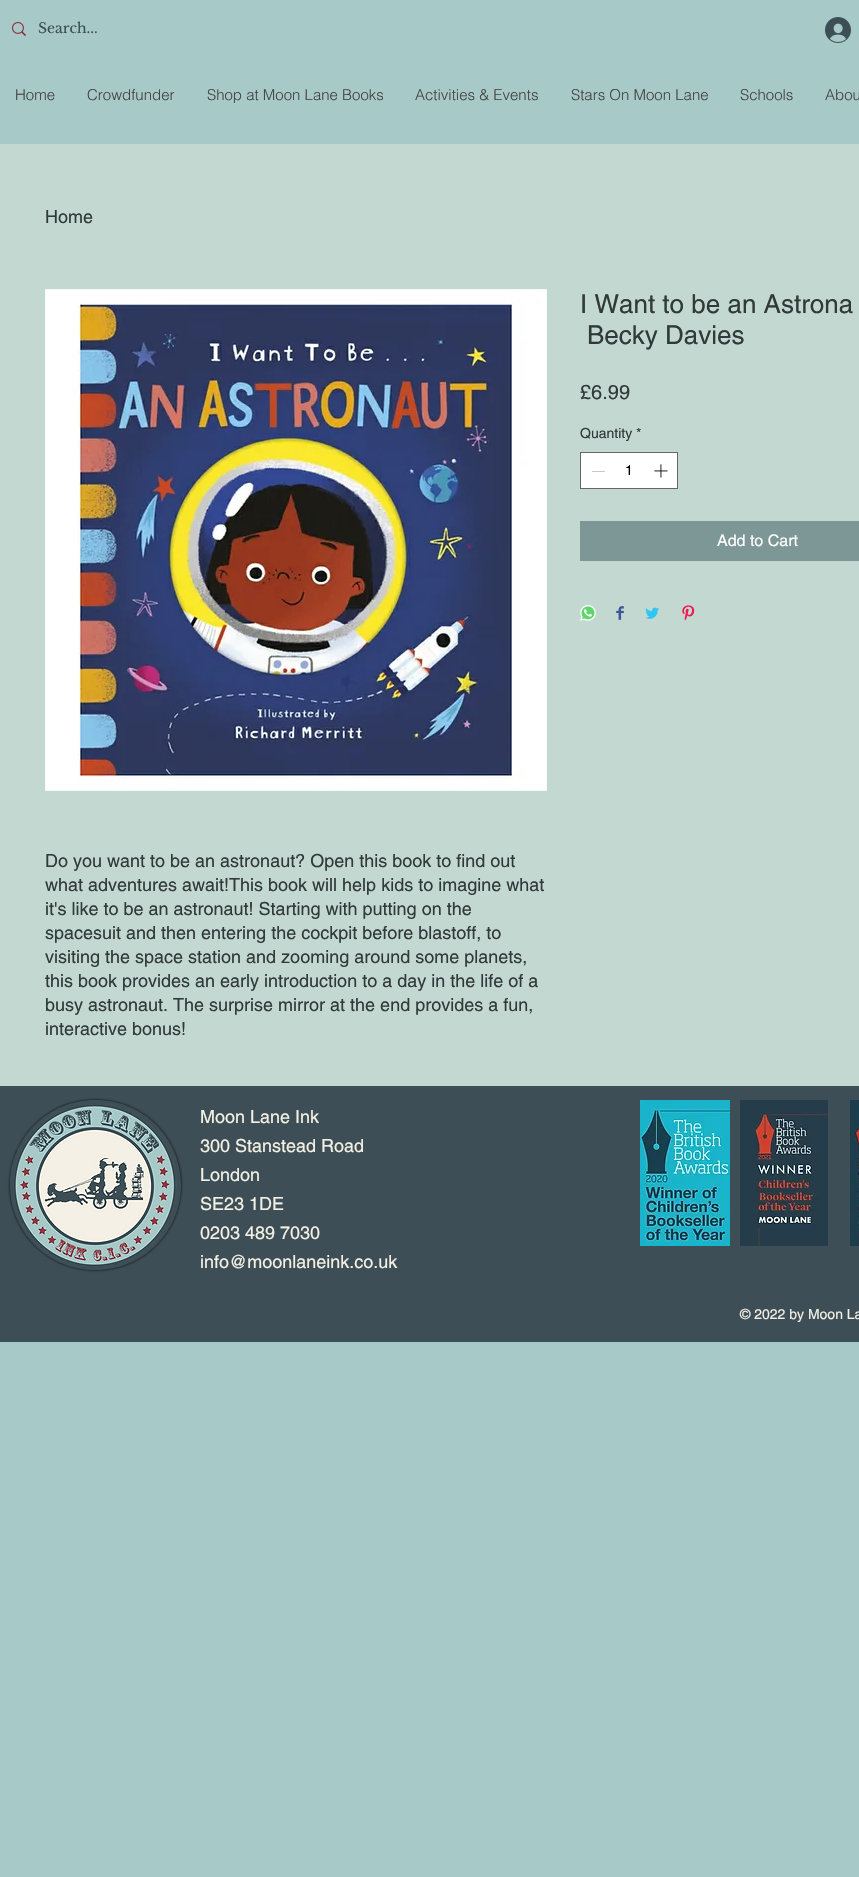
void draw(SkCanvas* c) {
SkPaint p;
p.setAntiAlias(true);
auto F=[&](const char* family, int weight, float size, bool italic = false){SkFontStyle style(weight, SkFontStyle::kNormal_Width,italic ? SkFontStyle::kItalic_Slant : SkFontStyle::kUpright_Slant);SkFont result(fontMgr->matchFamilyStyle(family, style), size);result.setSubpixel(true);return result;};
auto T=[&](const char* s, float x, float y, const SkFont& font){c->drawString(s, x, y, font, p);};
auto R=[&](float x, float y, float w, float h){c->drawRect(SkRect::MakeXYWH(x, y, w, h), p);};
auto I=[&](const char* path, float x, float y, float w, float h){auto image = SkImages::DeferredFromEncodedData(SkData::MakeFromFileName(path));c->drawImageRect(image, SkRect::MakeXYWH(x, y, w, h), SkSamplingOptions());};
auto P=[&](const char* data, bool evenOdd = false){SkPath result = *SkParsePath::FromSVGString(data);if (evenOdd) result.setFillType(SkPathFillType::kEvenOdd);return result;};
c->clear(0xffa7c9c8);
I("1.png",12,22,14,14);
auto f1 = F("Libre Baskerville",400,14);
p.setColor(0xff3e4e56);
T("Search...",38,33,f1);
I("2.png",825,17,26,26);
auto f2 = F("helvetica",300,15);
p.setColor(0xff444444);
T("Home",15,100,f2);
T("Crowdfunder",87,100,f2);
T("Shop at Moon Lane Books",207,100,f2);
T("Activities & Events",415,100,f2);
T("Stars On Moon Lane",571,100,f2);
T("Schools",740,100,f2);
T("Abou",825,100,f2);
p.setColor(0xffc4d8d2);
R(0,144,859,942);
auto f3 = F("helvetica",400,18);
p.setColor(0xff313a3a);
T("Home",45,223,f3);
auto f4 = F("helvetica",400,26);
T("I Want to be an Astrona",580,313,f4);
T("Becky Davies",587,344,f4);
auto f5 = F("helvetica",400,20);
T("£6.99",580,399,f5);
auto f6 = F("helvetica",400,14);
T("Quantity *",580,438,f6);
p.setColor(0xffffffff);
c->drawRect(SkRect::MakeXYWH(580.5,452.5,97,36),p);
p.setStroke(true);
p.setStrokeWidth(1);
p.setColor(0xff666666);
c->drawRect(SkRect::MakeXYWH(580.5,452.5,97,36),p);
p.setStroke(false);
p.setColor(0xffc7c7c7);
R(592,471,13,1);
p.setColor(0xff000000);
T("1",625,475,f6);
I("3.png",654,464,14,14);
p.setColor(0xff7d9796);
R(580,521,279,40);
auto f7 = F("helvetica",400,16);
p.setColor(0xffffffff);
T("Add to Cart",717,546,f7);
I("4.png",580,605,16,16);
I("5.png",616,606,8,14);
I("6.png",645,607,14,12);
I("7.png",682,605,13,16);
p.setStroke(true);
p.setColor(0xfff8f8f8);
c->drawRect(SkRect::MakeXYWH(45.5,289.5,501,501),p);
I("8.png",46,290,500,500);
p.setStroke(false);
p.setColor(0xff313a3a);
T("Do you want to be an astronaut? Open this book to find out",45,867,f3);
T("what adventures await!This book will help kids to imagine what",45,891,f3);
T("it's like to be an astronaut! Starting with putting on the",45,915,f3);
T("spacesuit and then entering the cockpit before blastoff, to",45,939,f3);
T("visiting the space station and zooming around some planets,",45,963,f3);
T("this book provides an early introduction to a day in the life of a",45,987,f3);
T("busy astronaut. The surprise mirror at the end provides a fun,",45,1011,f3);
T("interactive bonus!",45,1035,f3);
p.setColor(0xff3e4e56);
R(0,1086,859,256);
c->save();
c->clipPath(P("M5 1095h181v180h-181zm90 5h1c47 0 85 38 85 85c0 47-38 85-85 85h-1c-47 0-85-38-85-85c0-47 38-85 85-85z",true),true);
p.setColor(0x73000000);
p.setMaskFilter(SkMaskFilter::MakeBlur(kNormal_SkBlurStyle, 1));
c->drawRoundRect(SkRect::MakeXYWH(9,1099,173,172),86,86,p);
p.setMaskFilter(nullptr);
c->restore();
I("9.png",13,1104,164,163);
p.setColor(0xfff3f0e4);
T("Moon Lane Ink",200,1123,f3);
T("300 Stanstead Road",200,1152,f3);
T("London",200,1181,f3);
T("SE23 1DE",200,1210,f3);
T("0203 489 7030",200,1239,f3);
T("info@moonlaneink.co.uk",200,1268,f3);
I("10.png",640,1100,90,146);
I("11.png",740,1100,88,146);
I("12.png",850,1100,9,146);
T("© 2022 by Moon La",740,1319,f6);
}
